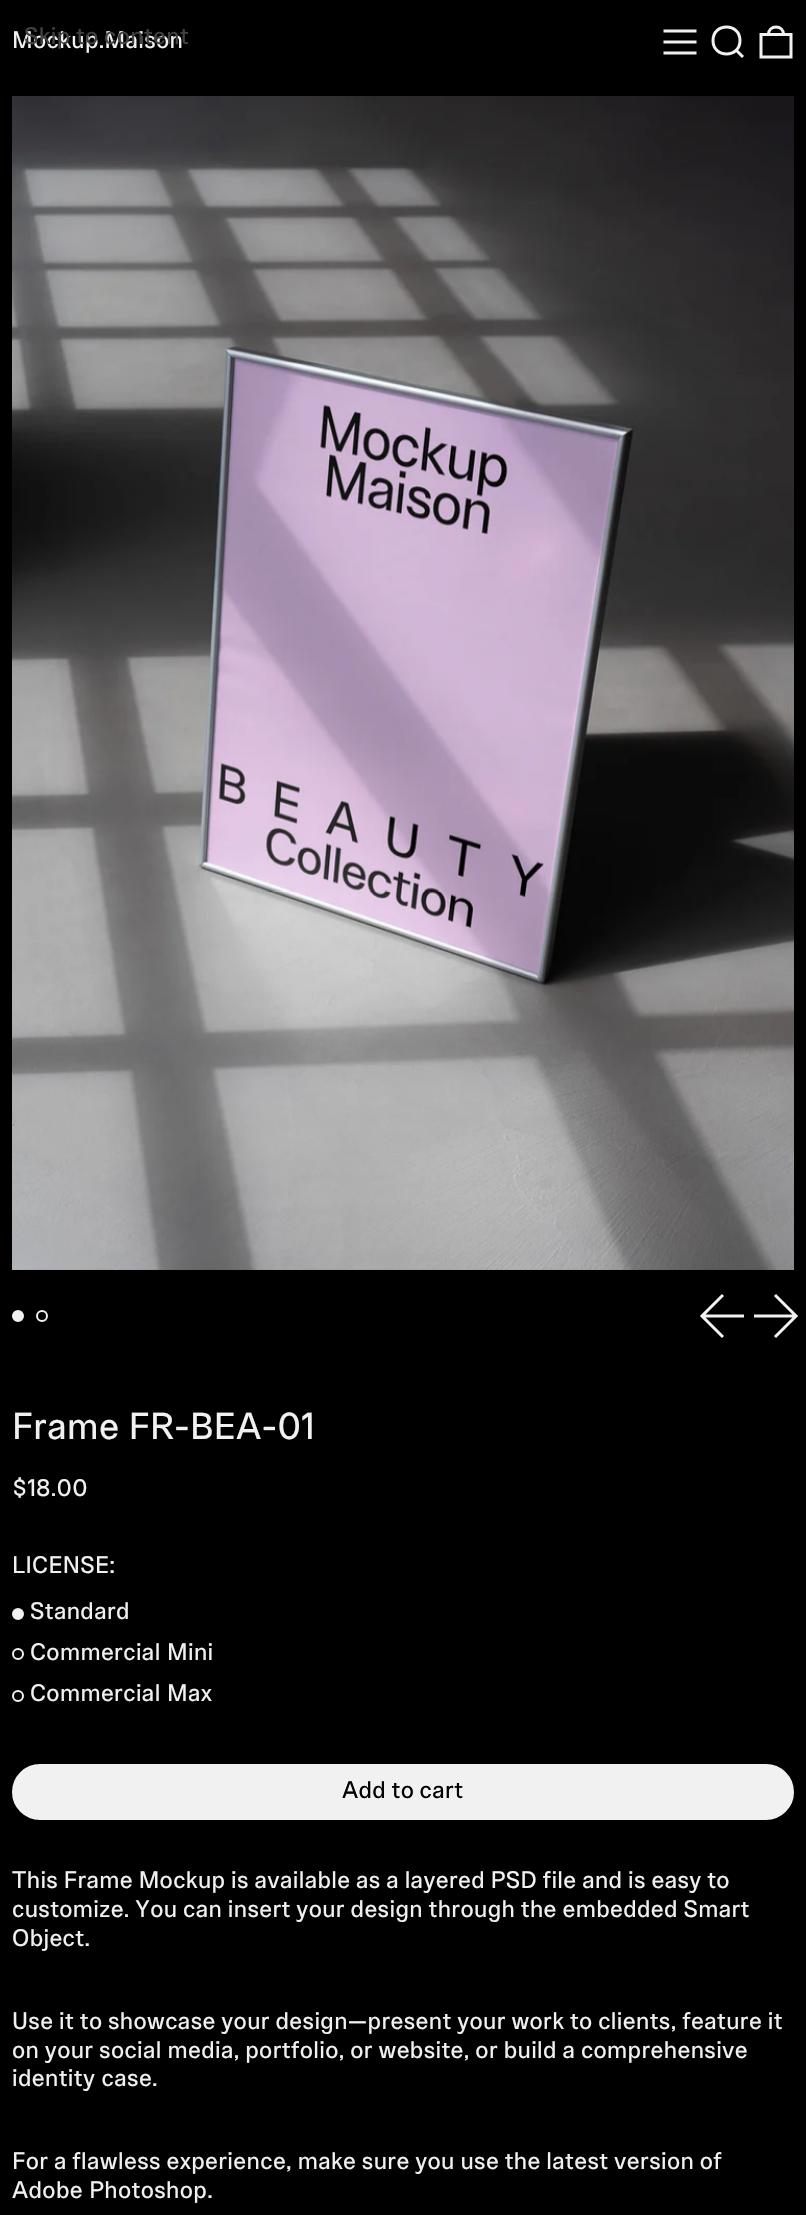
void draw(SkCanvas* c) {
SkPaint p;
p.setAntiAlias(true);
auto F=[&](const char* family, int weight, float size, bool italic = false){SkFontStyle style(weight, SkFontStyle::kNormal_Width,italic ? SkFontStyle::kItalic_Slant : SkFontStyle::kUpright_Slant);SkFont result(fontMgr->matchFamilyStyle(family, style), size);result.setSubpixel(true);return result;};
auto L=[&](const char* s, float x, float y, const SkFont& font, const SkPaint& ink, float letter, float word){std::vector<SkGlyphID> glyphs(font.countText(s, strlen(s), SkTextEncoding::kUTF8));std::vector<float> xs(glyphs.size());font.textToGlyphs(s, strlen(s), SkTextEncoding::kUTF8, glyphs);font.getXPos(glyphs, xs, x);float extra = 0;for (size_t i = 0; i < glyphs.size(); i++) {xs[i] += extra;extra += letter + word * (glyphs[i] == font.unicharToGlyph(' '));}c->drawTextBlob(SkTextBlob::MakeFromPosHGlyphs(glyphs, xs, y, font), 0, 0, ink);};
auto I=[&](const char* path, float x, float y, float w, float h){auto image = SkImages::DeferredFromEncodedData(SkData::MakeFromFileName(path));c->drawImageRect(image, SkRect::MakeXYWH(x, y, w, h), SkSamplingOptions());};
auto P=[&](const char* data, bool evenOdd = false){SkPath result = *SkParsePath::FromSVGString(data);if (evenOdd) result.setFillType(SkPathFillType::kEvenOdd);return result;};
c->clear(0xff000000);
auto f1 = F("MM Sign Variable",400,24);
p.setColor(0xfff1f1f1);
L("Mockup.Maison",12,48,f1,p,.35,0);
p.setColor(0xff414141);
L("Skip to content",24,44,f1,p,.35,0);
p.setStroke(true);
p.setStrokeWidth(3);
p.setColor(0xfff1f1f1);
c->drawPath(P("M663.5 31h33m-33 11h33m-33 11h33"),p);
c->drawPath(P("M713 40.5c0 18 27 18 27 0c0-18-27-18-27 0zm23 9.5l7 7"),p);
c->drawPath(P("M761 34.5h30v22.5h-30zm22.5 0c0-10-15-10-15 0"),p);
I("1.png",12,96,782,1174);
p.setStroke(false);
c->drawCircle(18,1316,5,p);
p.setStroke(true);
p.setStrokeWidth(2);
c->drawCircle(18,1316,5,p);
c->drawCircle(42,1316,5,p);
p.setStrokeWidth(3);
c->drawPath(P("M744 1316h-42m21 21l-21-21l21-21"),p);
c->drawPath(P("M754 1316h42m-21 21l21-21l-21-21"),p);
auto f2 = F("MM Sign Variable",400,37.5);
p.setStroke(false);
L("Frame FR-BEA-01",12,1439,f2,p,.4,1);
L("$18.00",12,1496,f1,p,.35,0);
L("LICENSE:",12,1573,f1,p,.35,0);
c->drawCircle(18,1614,5,p);
p.setStroke(true);
p.setStrokeWidth(2);
c->drawCircle(18,1614,5,p);
p.setStroke(false);
L("Standard",30,1619,f1,p,.35,0);
p.setStroke(true);
c->drawCircle(18,1654,5,p);
p.setStroke(false);
L("Commercial Mini",30,1660,f1,p,.35,1);
p.setStroke(true);
c->drawCircle(18,1696,5,p);
p.setStroke(false);
L("Commercial Max",30,1701,f1,p,.35,1);
c->drawRoundRect(SkRect::MakeXYWH(13,1765,780,54),27,27,p);
p.setStroke(true);
c->drawRoundRect(SkRect::MakeXYWH(13,1765,780,54),27,27,p);
p.setStroke(false);
p.setColor(0xff000000);
L("Add to cart",342,1798,f1,p,.35,0);
p.setColor(0xfff1f1f1);
L("This Frame Mockup is available as a layered PSD file and is easy to",12,1888,f1,p,.35,.25);
L("customize. You can insert your design through the embedded Smart",12,1917,f1,p,.35,.25);
L("Object.",12,1946,f1,p,.35,0);
L("Use it to showcase your design—present your work to clients, feature it",12,2029,f1,p,.35,.25);
L("on your social media, portfolio, or website, or build a comprehensive",12,2058,f1,p,.35,.25);
L("identity case.",12,2086,f1,p,.35,1);
L("For a flawless experience, make sure you use the latest version of",12,2169,f1,p,.35,.25);
L("Adobe Photoshop.",12,2198,f1,p,.35,1);
}
